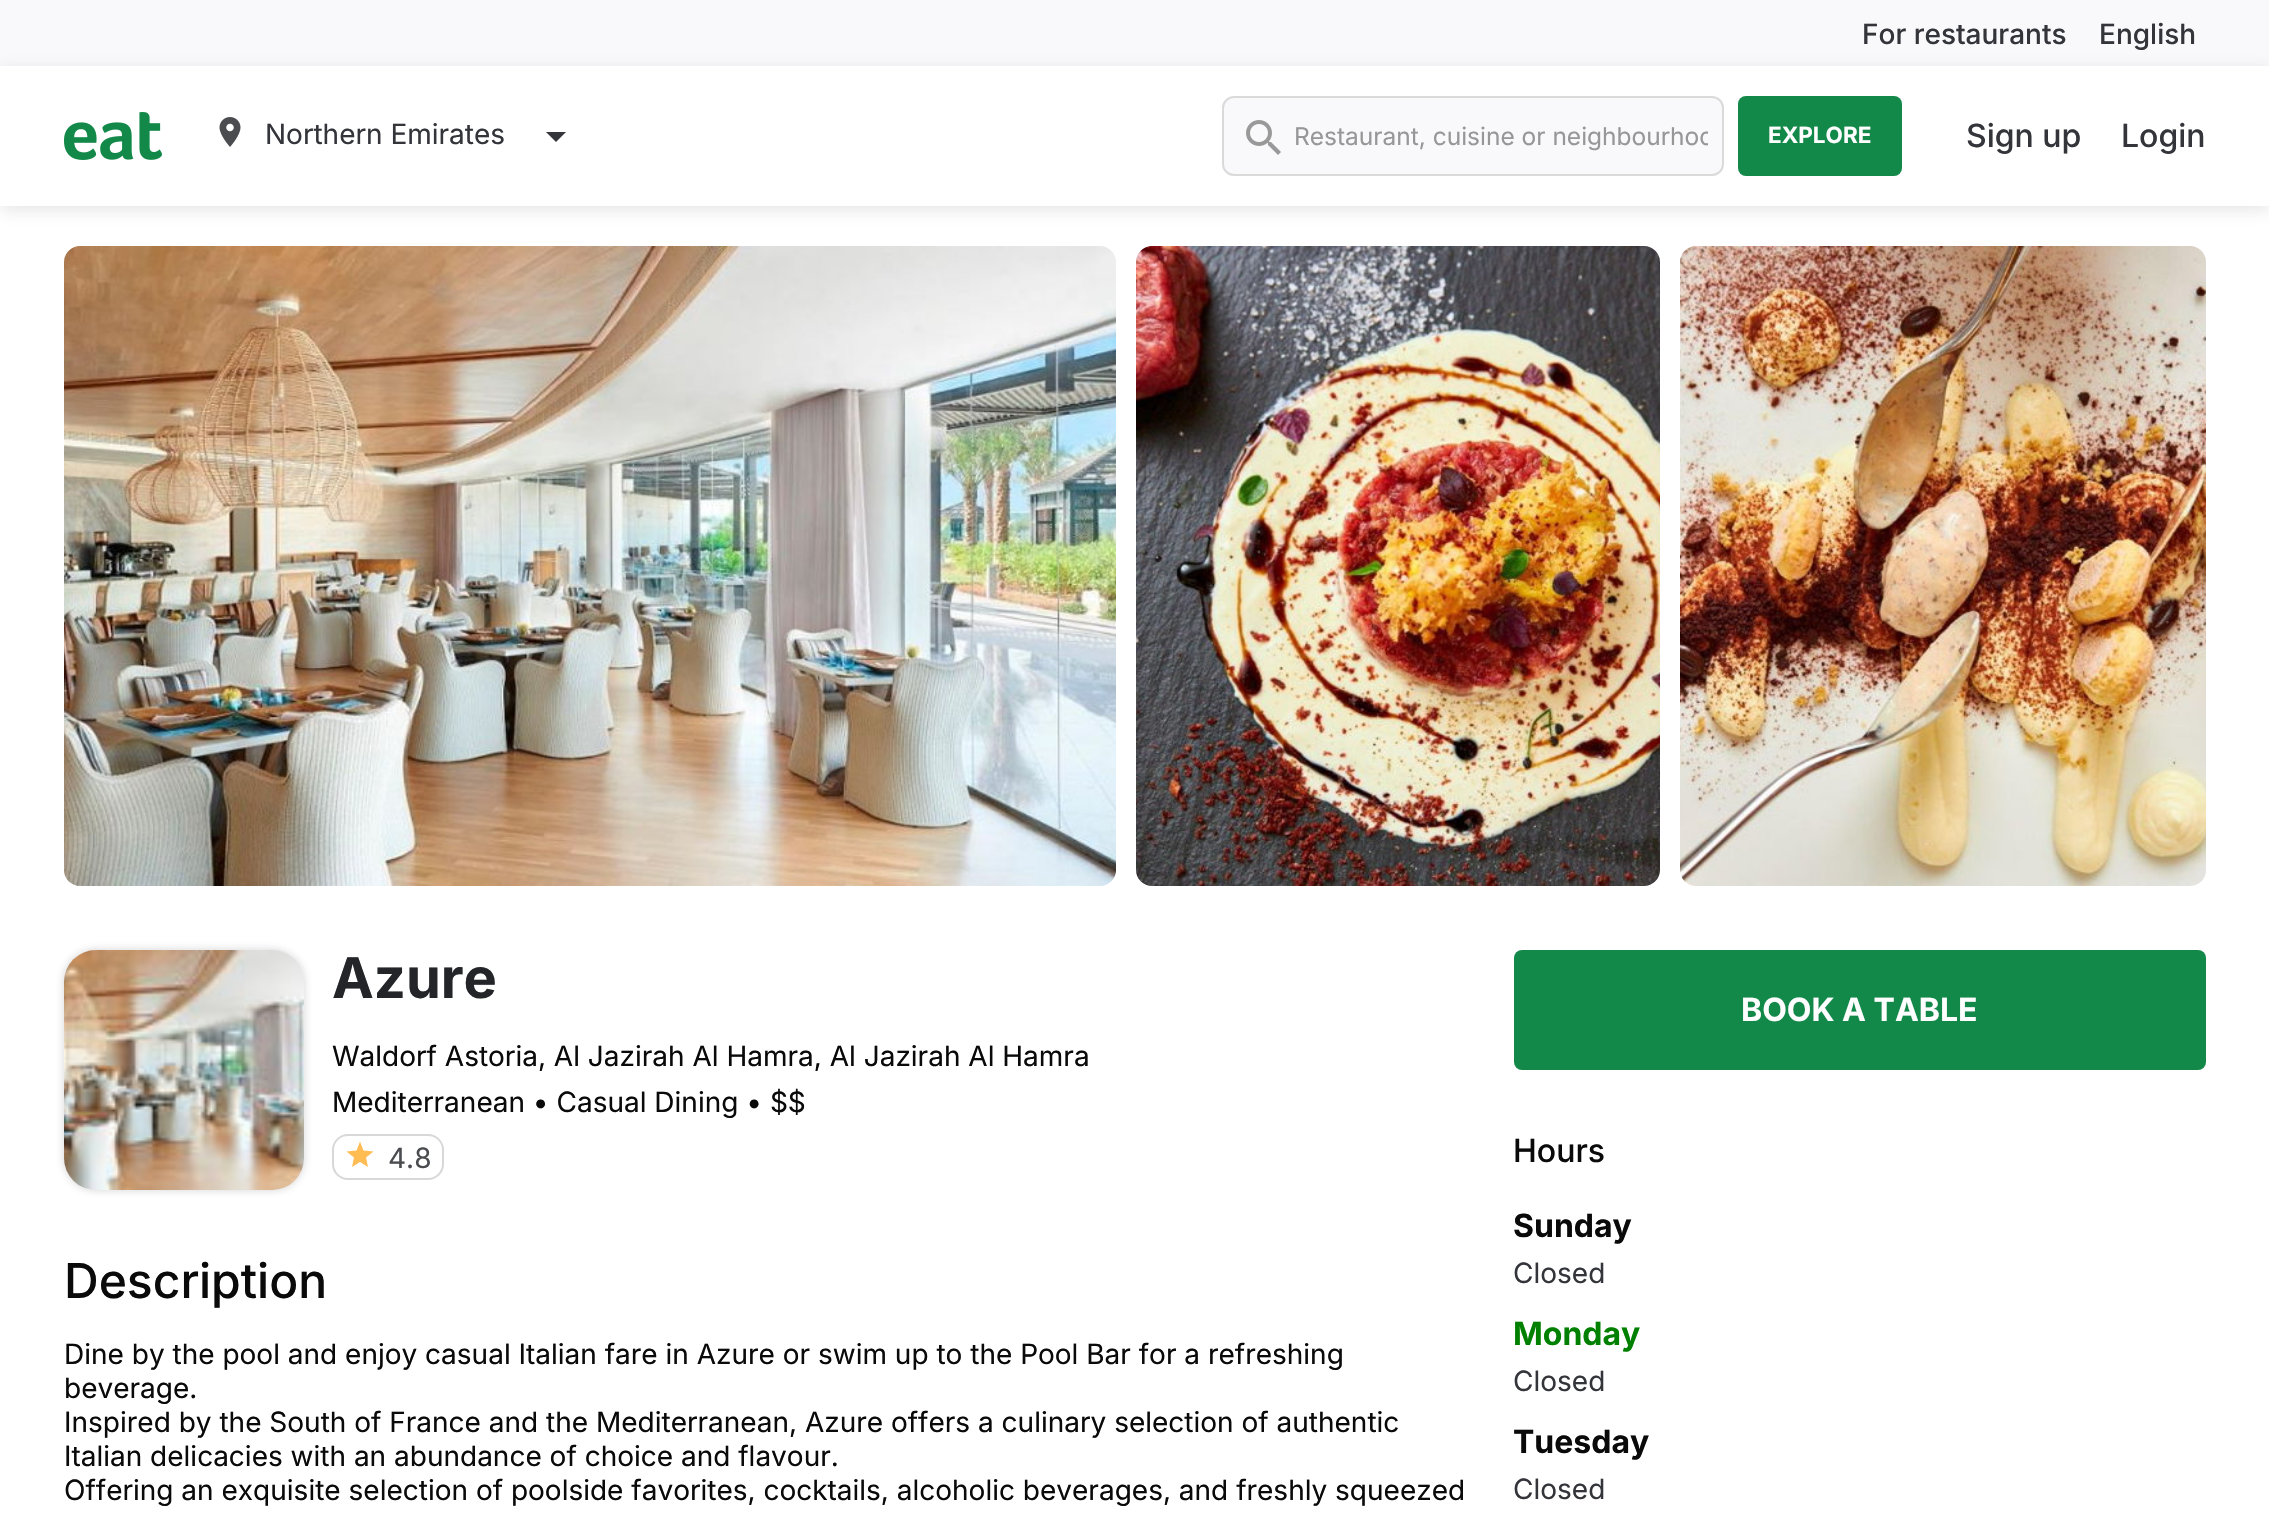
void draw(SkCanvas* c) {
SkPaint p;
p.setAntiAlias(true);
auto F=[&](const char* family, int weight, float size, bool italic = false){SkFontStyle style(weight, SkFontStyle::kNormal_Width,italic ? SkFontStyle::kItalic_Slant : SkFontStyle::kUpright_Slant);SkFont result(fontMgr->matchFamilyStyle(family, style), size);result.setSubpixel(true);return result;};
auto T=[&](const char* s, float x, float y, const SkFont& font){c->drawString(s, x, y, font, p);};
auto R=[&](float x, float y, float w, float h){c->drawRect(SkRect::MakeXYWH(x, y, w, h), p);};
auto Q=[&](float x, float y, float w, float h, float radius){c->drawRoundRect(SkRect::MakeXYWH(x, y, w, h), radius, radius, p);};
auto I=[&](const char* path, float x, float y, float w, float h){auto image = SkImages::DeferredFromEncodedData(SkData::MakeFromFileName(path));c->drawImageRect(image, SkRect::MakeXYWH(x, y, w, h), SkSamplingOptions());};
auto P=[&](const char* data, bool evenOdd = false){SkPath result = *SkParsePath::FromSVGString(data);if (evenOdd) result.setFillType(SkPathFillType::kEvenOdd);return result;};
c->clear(0xffffffff);
p.setColor(0xfff9f9fb);
R(0,0,2269,66);
auto f1 = F("Inter",500,28);
p.setColor(0xff34353a);
T("For restaurants",1862,44,f1);
c->save();
c->clipPath(P("M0 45h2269v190h-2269zm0 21h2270v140h-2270z",true),true);
p.setColor(0x26505050);
p.setMaskFilter(SkMaskFilter::MakeBlur(kNormal_SkBlurStyle, 8));
c->drawRect(SkRect::MakeXYWH(0,70,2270,140),p);
p.setMaskFilter(nullptr);
c->restore();
p.setColor(0xff34353a);
T("English",2099,44,f1);
I("1.png",64,112,98,48);
I("2.png",219,117,22,30);
auto f2 = F("Inter",400,28);
T("Northern Emirates",265,144,f2);
c->drawPath(P("M546 132l10 10l10-10z"),p);
p.setColor(0xfff9f9fb);
c->drawRoundRect(SkRect::MakeXYWH(1223,97,500,78),11,11,p);
p.setStroke(true);
p.setStrokeWidth(2);
p.setColor(0xffdadada);
c->drawRoundRect(SkRect::MakeXYWH(1223,97,500,78),11,11,p);
I("3.png",1246,120,35,35);
c->save();
c->clipRect(SkRect::MakeXYWH(1294,122,414,30));
auto f3 = F("Inter",400,24.5);
p.setStroke(false);
p.setColor(0xff979797);
T("Restaurant, cuisine or neighbourhoo",1294,145,f3);
c->restore();
p.setColor(0xff128849);
Q(1738,96,164,80,8);
auto f4 = F("Inter",700,22.5);
p.setColor(0xfffefefe);
T("EXPLORE",1768,143,f4);
auto f5 = F("Inter",500,32);
p.setColor(0xff34353a);
T("Sign up",1966,147,f5);
T("Login",2121,147,f5);
I("4.png",64,246,1052,640);
I("5.png",1136,246,524,640);
I("6.png",1680,246,526,640);
p.setColor(0x40505050);
p.setMaskFilter(SkMaskFilter::MakeBlur(kNormal_SkBlurStyle, 4));
c->drawRoundRect(SkRect::MakeXYWH(64,950,240,240),32,32,p);
p.setMaskFilter(nullptr);
I("7.png",64,950,240,240);
auto f6 = F("Inter",700,56);
p.setColor(0xff242529);
T("Azure",332,998,f6);
p.setColor(0xff0a0a0a);
T("Waldorf Astoria, Al Jazirah Al Hamra, Al Jazirah Al Hamra",332,1066,f2);
T("Mediterranean • Casual Dining • $$",332,1112,f2);
p.setStroke(true);
p.setColor(0xffd8d8d8);
c->drawRoundRect(SkRect::MakeXYWH(333,1135,110,44),15,15,p);
p.setStroke(false);
p.setColor(0xffffbc53);
c->drawPath(P("M360 1162l8 5l-2-9.5l7.5-6l-10-1l-3.5-9l-3.5 9l-10 1l7.5 6l-2 9.5z"),p);
p.setColor(0xff4a4c50);
T("4.8",388,1168,f2);
auto f7 = F("Inter",500,48);
p.setColor(0xff0a0a0a);
T("Description",64,1298,f7);
T("Dine by the pool and enjoy casual Italian fare in Azure or swim up to the Pool Bar for a refreshing",64,1364,f2);
T("beverage.",64,1398,f2);
T("Inspired by the South of France and the Mediterranean, Azure offers a culinary selection of authentic",64,1432,f2);
T("Italian delicacies with an abundance of choice and flavour.",64,1466,f2);
T("Offering an exquisite selection of poolside favorites, cocktails, alcoholic beverages, and freshly squeezed",64,1500,f2);
p.setColor(0xff128849);
Q(1514,950,692,120,8);
auto f8 = F("Inter",700,32);
p.setColor(0xfffefefe);
T("BOOK A TABLE",1741,1021,f8);
p.setColor(0xff0a0a0a);
T("Hours",1513,1162,f5);
T("Sunday",1513,1237,f8);
p.setColor(0xff34353a);
T("Closed",1513,1283,f2);
p.setColor(0xff008000);
T("Monday",1513,1345,f8);
p.setColor(0xff34353a);
T("Closed",1513,1391,f2);
p.setColor(0xff0a0a0a);
T("Tuesday",1513,1453,f8);
p.setColor(0xff34353a);
T("Closed",1513,1499,f2);
}
